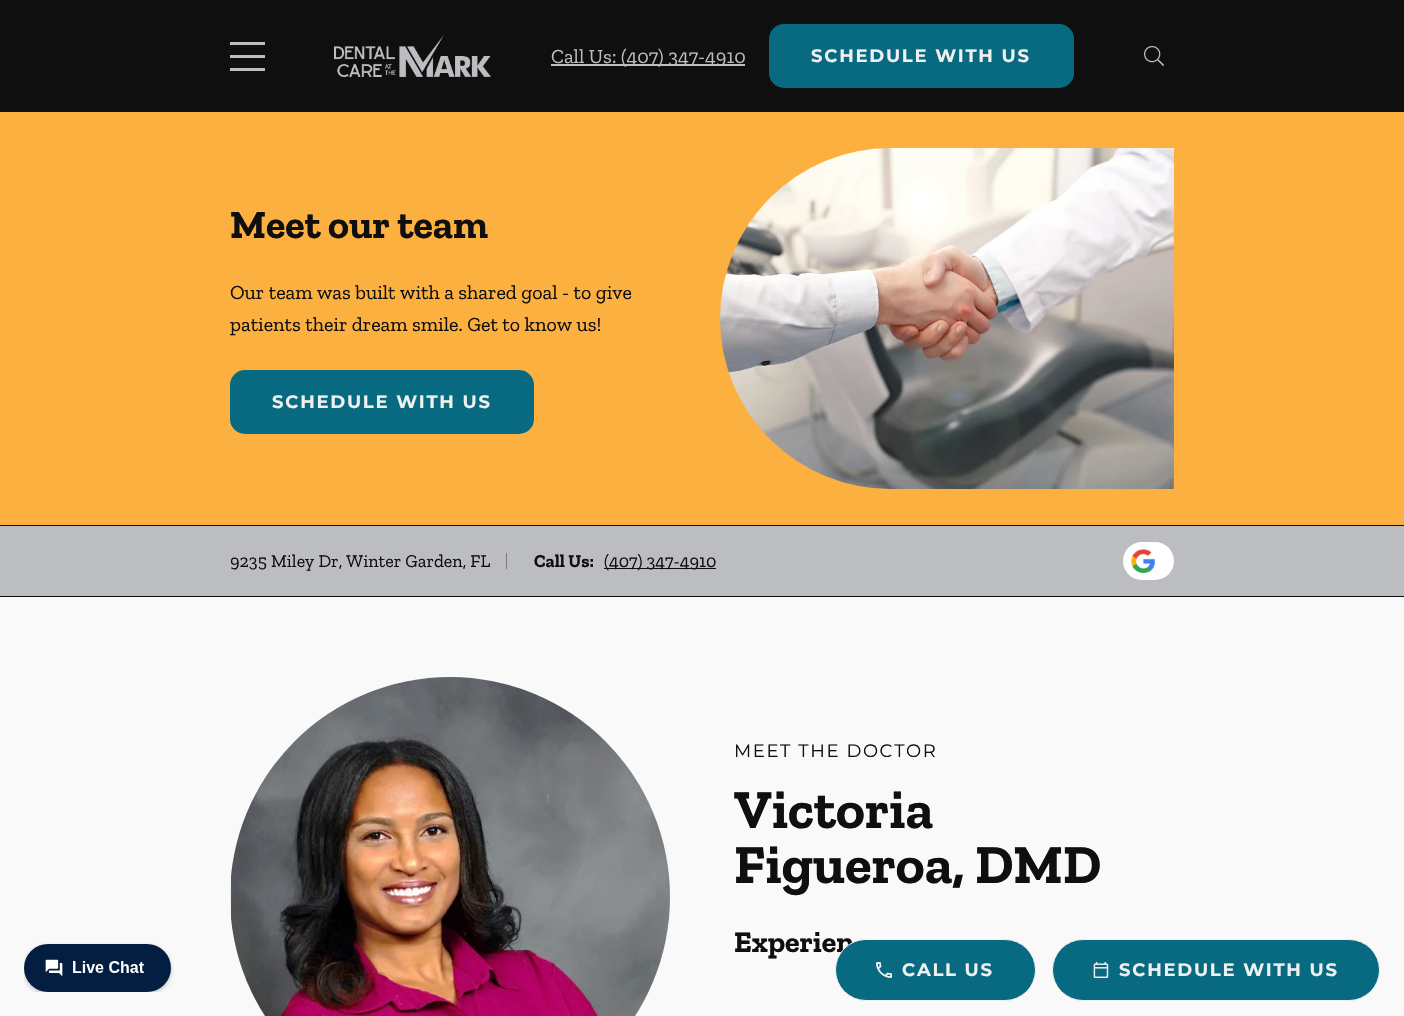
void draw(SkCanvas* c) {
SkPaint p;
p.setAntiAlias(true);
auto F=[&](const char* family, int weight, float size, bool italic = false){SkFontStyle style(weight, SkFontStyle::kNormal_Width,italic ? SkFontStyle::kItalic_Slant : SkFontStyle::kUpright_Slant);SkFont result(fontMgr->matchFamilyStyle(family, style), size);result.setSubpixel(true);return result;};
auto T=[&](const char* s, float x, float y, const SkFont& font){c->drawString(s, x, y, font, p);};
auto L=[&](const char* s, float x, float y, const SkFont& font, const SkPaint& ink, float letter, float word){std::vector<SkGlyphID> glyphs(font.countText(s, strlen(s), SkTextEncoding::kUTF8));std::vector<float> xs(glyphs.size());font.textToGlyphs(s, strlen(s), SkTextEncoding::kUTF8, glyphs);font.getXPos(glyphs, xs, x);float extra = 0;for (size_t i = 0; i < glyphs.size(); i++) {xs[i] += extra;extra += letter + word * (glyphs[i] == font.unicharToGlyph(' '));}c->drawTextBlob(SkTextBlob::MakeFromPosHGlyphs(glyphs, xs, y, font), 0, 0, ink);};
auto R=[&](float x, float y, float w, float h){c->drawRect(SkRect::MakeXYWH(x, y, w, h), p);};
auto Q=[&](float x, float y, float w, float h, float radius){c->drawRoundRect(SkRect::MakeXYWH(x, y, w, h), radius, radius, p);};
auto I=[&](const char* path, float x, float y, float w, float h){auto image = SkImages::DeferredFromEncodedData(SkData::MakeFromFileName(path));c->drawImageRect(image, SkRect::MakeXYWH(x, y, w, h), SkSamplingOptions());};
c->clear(0xfff9f9f9);
I("1.png",24,943,150,49);
p.setColor(0xff0f0f0f);
R(0,0,1404,112);
p.setColor(0xffbcbdc0);
R(230,42,35,3);
R(230,55,35,3);
R(230,68,35,3);
I("2.png",334,35,157,42);
R(551,64,194,2);
auto f1 = F("Zilla Slab",400,20);
T("Call Us: (407) 347-4910",551,63,f1);
p.setColor(0xff086a81);
c->drawRoundRect(SkRect::MakeXYWH(770,25,303,62),14,14,p);
p.setStroke(true);
p.setStrokeWidth(2);
c->drawRoundRect(SkRect::MakeXYWH(770,25,303,62),14,14,p);
auto f2 = F("Montserrat",700,18);
p.setStroke(false);
p.setColor(0xfff0f0f0);
L("SCHEDULE WITH US",811,62,f2,p,1.75,0);
I("3.png",1144,46,20,20);
p.setColor(0xfffbb03f);
R(0,112,1404,413);
auto f3 = F("Zilla Slab",700,40);
p.setColor(0xff0f0f0f);
T("Meet our team",230,238,f3);
T("Our team was built with a shared goal - to give",230,299,f1);
T("patients their dream smile. Get to know us!",230,331,f1);
p.setColor(0xff086a81);
c->drawRoundRect(SkRect::MakeXYWH(231,371,302,62),14,14,p);
p.setStroke(true);
c->drawRoundRect(SkRect::MakeXYWH(231,371,302,62),14,14,p);
p.setStroke(false);
p.setColor(0xfff0f0f0);
L("SCHEDULE WITH US",272,408,f2,p,1.75,0);
I("4.png",720,148,454,341);
p.setColor(0xffbcbdc0);
R(0,526,1404,70);
p.setColor(0xff0f0f0f);
R(0,525,1404,1);
R(0,596,1404,1);
auto f4 = F("Zilla Slab",400,18);
T("9235 Miley Dr, Winter Garden, FL",230,567,f4);
p.setColor(0xff7a7a7a);
R(506,553,1,16);
auto f5 = F("Zilla Slab",700,18);
p.setColor(0xff0f0f0f);
T("Call Us:",534,567,f5);
R(604,568,112,1);
T("(407) 347-4910",604,567,f4);
p.setColor(0xffffffff);
Q(1123,542,51,38,19);
I("5.png",1131,549,24,24);
I("6.png",230,677,440,339);
auto f6 = F("Montserrat",400,18);
p.setColor(0xff0f0f0f);
L("MEET THE DOCTOR",734,757,f6,p,1.6,0);
auto f7 = F("Zilla Slab",700,55);
T("Victoria",734,828,f7);
T("Figueroa, DMD",734,883,f7);
auto f8 = F("Zilla Slab",700,30);
T("Experien",734,952,f8);
p.setColor(0xff086a81);
c->drawRoundRect(SkRect::MakeXYWH(835.5,939.5,200,61),30.5,30.5,p);
p.setStroke(true);
p.setStrokeWidth(1);
p.setColor(0xfff0f0f0);
c->drawRoundRect(SkRect::MakeXYWH(835.5,939.5,200,61),30.5,30.5,p);
I("7.png",876,962,16,16);
p.setStroke(false);
L("CALL US",902,976,f2,p,1.75,0);
p.setColor(0xff086a81);
c->drawRoundRect(SkRect::MakeXYWH(1052.5,939.5,327,61),30.5,30.5,p);
p.setStroke(true);
p.setColor(0xfff0f0f0);
c->drawRoundRect(SkRect::MakeXYWH(1052.5,939.5,327,61),30.5,30.5,p);
I("8.png",1093,962,16,16);
p.setStroke(false);
L("SCHEDULE WITH US",1119,976,f2,p,1.75,0);
}
